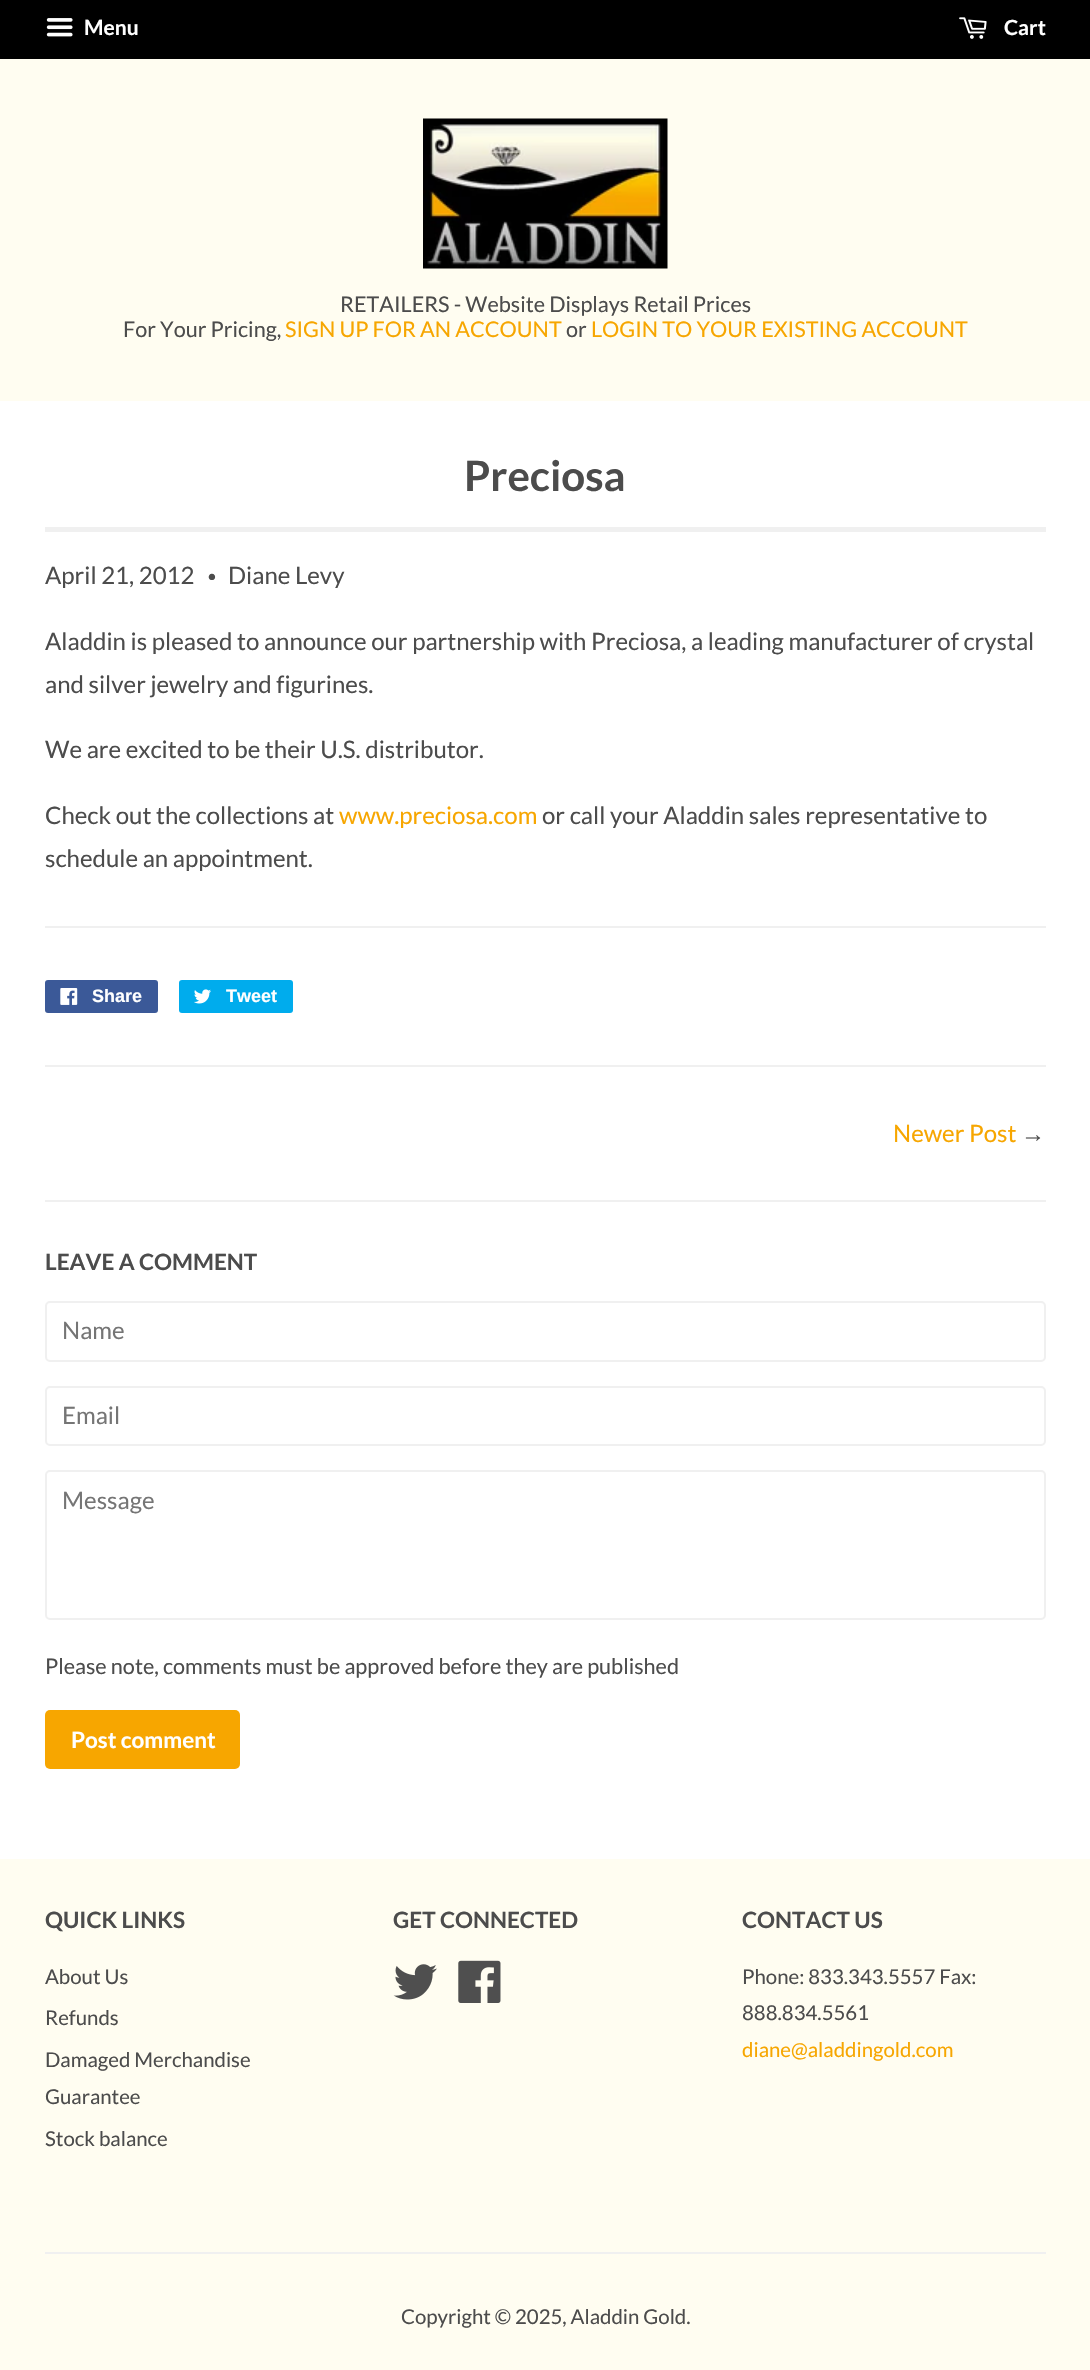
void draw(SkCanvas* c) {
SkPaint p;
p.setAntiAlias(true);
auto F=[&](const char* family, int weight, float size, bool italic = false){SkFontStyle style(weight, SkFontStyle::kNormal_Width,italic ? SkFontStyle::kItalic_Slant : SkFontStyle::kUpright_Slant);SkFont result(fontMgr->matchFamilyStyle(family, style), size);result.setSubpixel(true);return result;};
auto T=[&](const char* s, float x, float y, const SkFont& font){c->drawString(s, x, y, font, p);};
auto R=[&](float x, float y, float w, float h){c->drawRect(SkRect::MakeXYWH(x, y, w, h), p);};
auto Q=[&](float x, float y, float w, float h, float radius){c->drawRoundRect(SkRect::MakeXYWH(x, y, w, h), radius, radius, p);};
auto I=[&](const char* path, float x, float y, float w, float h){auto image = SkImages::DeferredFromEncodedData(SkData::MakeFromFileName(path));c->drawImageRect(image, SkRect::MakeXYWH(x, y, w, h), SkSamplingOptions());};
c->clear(0xffffffff);
p.setColor(0xff000000);
R(0,0,1090,59);
I("1.png",46,18,27,19);
auto f1 = F("Lato",700,21);
p.setColor(0xffffffff);
T("Menu",84,35,f1);
I("2.png",959,17,28,22);
T("Cart",1004,35,f1);
p.setColor(0xfffffdf1);
R(0,59,1090,342);
I("3.png",423,118,245,151);
auto f2 = F("Lato",400,21.6);
p.setColor(0xff4c4c4c);
T("RETAILERS - Website Displays Retail Prices",340,312,f2);
T("For Your Pricing,",123,337,f2);
p.setColor(0xfff7a600);
T("SIGN UP FOR AN ACCOUNT",285,337,f2);
p.setColor(0xff4c4c4c);
T("or",566,337,f2);
p.setColor(0xfff7a600);
T("LOGIN TO YOUR EXISTING ACCOUNT",591,337,f2);
p.setColor(0xfff0f0f0);
R(45,527,1001,5);
auto f3 = F("Lato",700,42);
p.setColor(0xff4c4c4c);
T("Preciosa",464,491,f3);
auto f4 = F("Lato",400,24);
T("April 21, 2012",45,584,f4);
auto f5 = F("Lato",400,17);
T("•",207,582,f5);
T("Diane Levy",228,584,f4);
T("Aladdin is pleased to announce our partnership with Preciosa, a leading manufacturer of crystal",45,650,f4);
T("and silver jewelry and figurines.",45,693,f4);
T("We are excited to be their U.S. distributor.",45,758,f4);
T("Check out the collections at",45,824,f4);
p.setColor(0xfff7a600);
T("www.preciosa.com",339,824,f4);
p.setColor(0xff4c4c4c);
T("or call your Aladdin sales representative to",542,824,f4);
T("schedule an appointment.",45,867,f4);
p.setColor(0xfff0f0f0);
R(45,926,1001,2);
p.setColor(0xff3b5998);
Q(45,980,113,33,3);
I("4.png",60,988,18,17);
auto f6 = F("Liberation Sans",700,18);
p.setColor(0xffffffff);
T("Share",92,1002,f6);
p.setColor(0xff00aced);
Q(179,980,114,33,3);
I("5.png",194,989,17,15);
p.setColor(0xffffffff);
T("Tweet",226,1002,f6);
p.setColor(0xfff0f0f0);
R(45,1065,1001,2);
p.setColor(0xfff7a600);
T("Newer Post",893,1142,f4);
auto f7 = F("Liberation Sans",400,24);
p.setColor(0xff4c4c4c);
T("→",1021,1142,f7);
p.setColor(0xfff0f0f0);
R(45,1200,1001,2);
auto f8 = F("Lato",700,22.5);
p.setColor(0xff4c4c4c);
T("LEAVE A COMMENT",45,1270,f8);
p.setStroke(true);
p.setStrokeWidth(2);
p.setColor(0xfff0f0f0);
c->drawRoundRect(SkRect::MakeXYWH(46,1302,999,59),4,4,p);
p.setStroke(false);
p.setColor(0xff757575);
T("Name",62,1339,f4);
p.setStroke(true);
p.setColor(0xfff0f0f0);
c->drawRoundRect(SkRect::MakeXYWH(46,1387,999,58),4,4,p);
p.setStroke(false);
p.setColor(0xff757575);
T("Email",62,1424,f4);
p.setStroke(true);
p.setColor(0xfff0f0f0);
c->drawRoundRect(SkRect::MakeXYWH(46,1471,999,148),4,4,p);
p.setStroke(false);
p.setColor(0xff757575);
T("Message",62,1509,f4);
p.setColor(0xff4c4c4c);
T("Please note, comments must be approved before they are published",45,1674,f2);
p.setColor(0xfff7a600);
Q(45,1710,195,59,5);
p.setColor(0xffffffff);
T("Post comment",71,1748,f8);
p.setColor(0xfffffdf1);
R(0,1859,1090,511);
p.setColor(0xff4c4c4c);
T("QUICK LINKS",45,1928,f8);
auto f9 = F("Lato",400,20.4);
T("About Us",45,1984,f9);
T("Refunds",45,2025,f9);
T("Damaged Merchandise",45,2067,f9);
T("Guarantee",45,2104,f9);
T("Stock balance",45,2146,f9);
T("GET CONNECTED",393,1928,f8);
I("6.png",393,1964,44,36);
I("7.png",458,1960,43,43);
T("CONTACT US",742,1928,f8);
T("Phone: 833.343.5557 Fax:",742,1984,f9);
T("888.834.5561",742,2020,f9);
p.setColor(0xfff7a600);
T("diane@aladdingold.com",742,2057,f9);
p.setColor(0xfff0f0f0);
R(45,2252,1001,2);
p.setColor(0xff4c4c4c);
T("Copyright © 2025, Aladdin Gold.",401,2324,f9);
}
